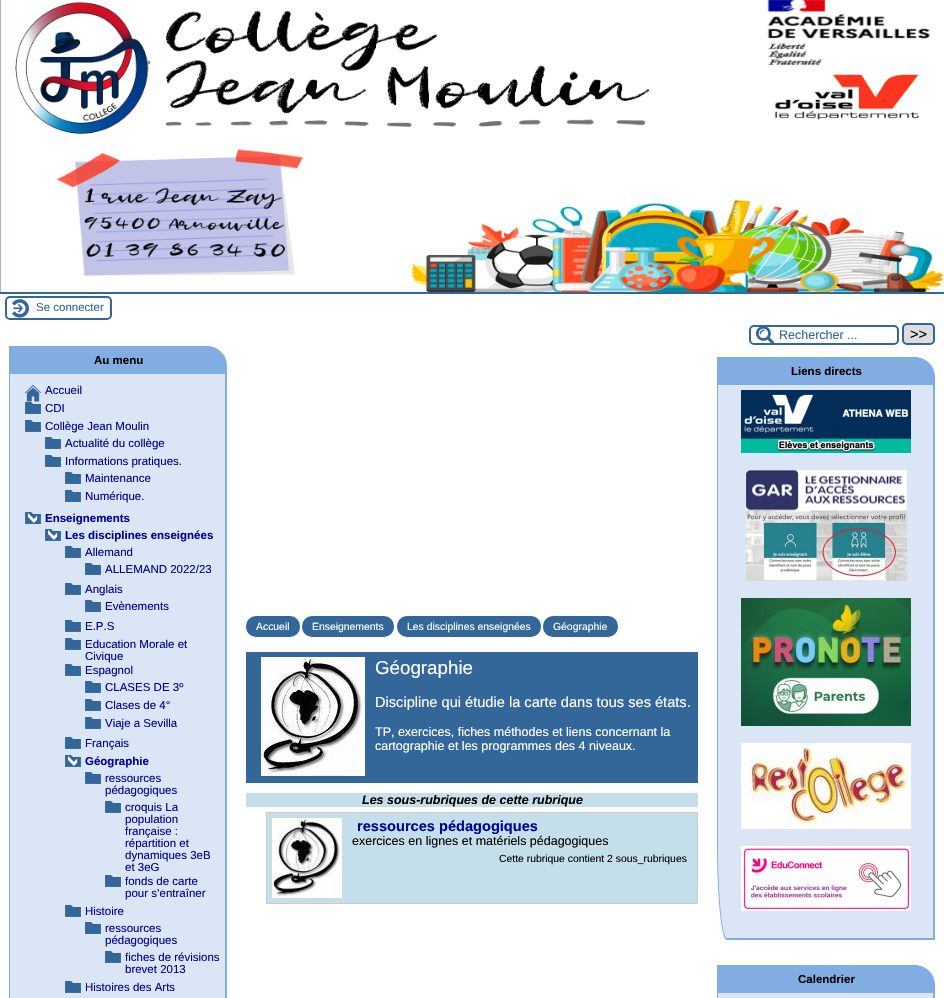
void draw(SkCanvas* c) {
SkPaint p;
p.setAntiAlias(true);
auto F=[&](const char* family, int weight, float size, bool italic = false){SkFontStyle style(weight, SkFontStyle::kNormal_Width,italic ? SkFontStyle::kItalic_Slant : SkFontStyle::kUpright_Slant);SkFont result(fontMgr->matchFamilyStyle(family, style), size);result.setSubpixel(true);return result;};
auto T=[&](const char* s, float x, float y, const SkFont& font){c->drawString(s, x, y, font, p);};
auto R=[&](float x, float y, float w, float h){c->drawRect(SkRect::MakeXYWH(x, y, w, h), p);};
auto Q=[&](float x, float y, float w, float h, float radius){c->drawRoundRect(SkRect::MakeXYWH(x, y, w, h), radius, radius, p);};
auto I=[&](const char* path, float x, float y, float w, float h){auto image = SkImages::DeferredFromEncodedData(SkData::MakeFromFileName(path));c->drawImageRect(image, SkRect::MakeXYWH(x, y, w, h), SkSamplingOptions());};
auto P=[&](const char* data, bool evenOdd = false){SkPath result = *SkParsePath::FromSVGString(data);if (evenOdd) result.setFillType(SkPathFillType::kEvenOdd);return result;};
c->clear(0xffffffff);
p.setColor(0xff336699);
R(0,0,944,294);
I("1.png",0,0,944,292);
I("2.png",12,299,17,19);
p.setStroke(true);
p.setStrokeWidth(2);
c->drawRoundRect(SkRect::MakeXYWH(6,297,105,22),4,4,p);
auto f1 = F("Liberation Sans",400,11.5);
p.setStroke(false);
T("Se connecter",36,311,f1);
p.setColor(0xff82ade2);
c->drawPath(P("M9 346h198c11 0 20 9 20 20v8h-218z"),p);
auto f2 = F("Liberation Sans",700,11.5);
p.setColor(0xff000000);
T("Au menu",94,364,f2);
p.setColor(0xffdae6f6);
c->drawPath(P("M10 374h215v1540h-206c-5 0-9-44-9-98z"),p);
p.setColor(0xff82ade2);
c->drawPath(P("M9 374h218v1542h-208c-6 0-10-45-10-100zm1 0h215v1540h-206c-5 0-9-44-9-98z",true),p);
I("3.png",25,385,16,17);
p.setColor(0xff000099);
T("Accueil",45,394,f1);
I("4.png",25,402,16,12);
T("CDI",45,412,f1);
I("4.png",25,420,16,12);
T("Collège Jean Moulin",45,430,f1);
I("4.png",45,437,16,12);
T("Actualité du collège",65,447,f1);
I("4.png",45,455,16,12);
T("Informations pratiques.",65,465,f1);
I("4.png",65,472,16,12);
T("Maintenance",85,482,f1);
I("4.png",65,490,16,12);
T("Numérique.",85,500,f1);
I("5.png",25,512,16,12);
T("Enseignements",45,522,f2);
I("5.png",45,529,16,12);
T("Les disciplines enseignées",65,539,f2);
I("4.png",65,546,16,12);
T("Allemand",85,556,f1);
I("4.png",85,563,16,12);
T("ALLEMAND 2022/23",105,573,f1);
I("4.png",65,583,16,12);
T("Anglais",85,593,f1);
I("4.png",85,600,16,12);
T("Evènements",105,610,f1);
I("4.png",65,620,16,12);
T("E.P.S",85,630,f1);
I("4.png",65,638,16,12);
T("Education Morale et",85,648,f1);
T("Civique",85,660,f1);
I("4.png",65,664,16,12);
T("Espagnol",85,674,f1);
I("4.png",85,681,16,12);
T("CLASES DE 3º",105,691,f1);
I("4.png",85,699,16,12);
T("Clases de 4°",105,709,f1);
I("4.png",85,717,16,12);
T("Viaje a Sevilla",105,727,f1);
I("4.png",65,737,16,12);
T("Français",85,747,f1);
I("5.png",65,755,16,12);
T("Géographie",85,765,f2);
I("4.png",85,772,16,12);
T("ressources",105,782,f1);
T("pédagogiques",105,794,f1);
I("4.png",105,801,16,12);
T("croquis La",125,811,f1);
T("population",125,823,f1);
T("française :",125,835,f1);
T("répartition et",125,847,f1);
T("dynamiques 3eB",125,859,f1);
T("et 3eG",125,871,f1);
I("4.png",105,875,16,12);
T("fonds de carte",125,885,f1);
T("pour s’entraîner",125,897,f1);
I("4.png",65,905,16,12);
T("Histoire",85,915,f1);
I("4.png",85,922,16,12);
T("ressources",105,932,f1);
T("pédagogiques",105,944,f1);
I("4.png",105,951,16,12);
T("fiches de révisions",125,961,f1);
T("brevet 2013",125,973,f1);
I("4.png",65,981,16,12);
T("Histoires des Arts",85,991,f1);
p.setColor(0xff336699);
Q(246,616,54,21,10);
auto f3 = F("Liberation Sans",400,10.4);
p.setColor(0xffffffff);
T("Accueil",256,630,f3);
p.setColor(0xff336699);
Q(302,616,92,21,10);
p.setColor(0xffffffff);
T("Enseignements",312,630,f3);
p.setColor(0xff336699);
Q(397,616,144,21,10);
p.setColor(0xffffffff);
T("Les disciplines enseignées",407,630,f3);
p.setColor(0xff336699);
Q(543,616,75,21,10);
p.setColor(0xffffffff);
T("Géographie",553,630,f3);
p.setColor(0xff336699);
R(246,652,452,131);
I("6.png",261,657,104,119);
auto f4 = F("Liberation Sans",400,18.75);
p.setColor(0xffffffff);
T("Géographie",375,674,f4);
auto f5 = F("Liberation Sans",400,14.6);
T("Discipline qui étudie la carte dans tous ses états.",375,707,f5);
auto f6 = F("Liberation Sans",400,12.5);
T("TP, exercices, fiches méthodes et liens concernant la",375,736,f6);
T("cartographie et les programmes des 4 niveaux.",375,750,f6);
p.setColor(0xffc4dfea);
R(246,793,452,14);
auto f7 = F("Liberation Sans",700,12.5,true);
p.setColor(0xff000000);
T("Les sous-rubriques de cette rubrique",362,804,f7);
p.setColor(0xffc4dfea);
c->drawRect(SkRect::MakeXYWH(266.5,812.5,431,91),p);
p.setStroke(true);
p.setStrokeWidth(1);
p.setColor(0xffcccccc);
c->drawRect(SkRect::MakeXYWH(266.5,812.5,431,91),p);
I("7.png",272,818,70,80);
auto f8 = F("Liberation Sans",700,14.6);
p.setStroke(false);
p.setColor(0xff000099);
T("ressources pédagogiques",357,831,f8);
p.setColor(0xff000000);
T("exercices en lignes et matériels pédagogiques",352,845,f6);
T("Cette rubrique contient 2 sous_rubriques",499,862,f3);
I("8.png",756,327,18,16);
p.setStroke(true);
p.setStrokeWidth(2);
p.setColor(0xff336699);
c->drawRoundRect(SkRect::MakeXYWH(750,326,148,18),4,4,p);
p.setStroke(false);
T("Rechercher ...",779,339,f6);
p.setColor(0xffdddddd);
c->drawRoundRect(SkRect::MakeXYWH(903,324,31,20),4,4,p);
p.setStroke(true);
p.setColor(0xff336699);
c->drawRoundRect(SkRect::MakeXYWH(903,324,31,20),4,4,p);
p.setStroke(false);
p.setColor(0xff000000);
T(">>",910,339,f5);
p.setColor(0xff82ade2);
c->drawPath(P("M717 357h198c11 0 20 9 20 20v8h-218z"),p);
p.setColor(0xff000000);
T("Liens directs",791,375,f2);
p.setColor(0xffdae6f6);
c->drawPath(P("M718 385h215v553h-206c-5 0-9-44-9-98z"),p);
p.setColor(0xff82ade2);
c->drawPath(P("M717 385h218v555h-208c-6 0-10-45-10-100zm1 0h215v553h-206c-5 0-9-44-9-98z",true),p);
I("9.png",741,390,170,63);
I("10.png",746,470,161,111);
I("11.png",741,598,170,128);
I("12.png",741,743,170,86);
I("13.png",741,846,170,65);
c->drawPath(P("M717 965h198c11 0 20 9 20 20v8h-218z"),p);
p.setColor(0xff000000);
T("Calendrier",798,983,f2);
p.setColor(0xffdae6f6);
c->drawPath(P("M718 993h215v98h-206c-5 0-9-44-9-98z"),p);
p.setColor(0xff82ade2);
c->drawPath(P("M717 993h218v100h-208c-6 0-10-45-10-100zm1 0h215v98h-206c-5 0-9-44-9-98z",true),p);
}
